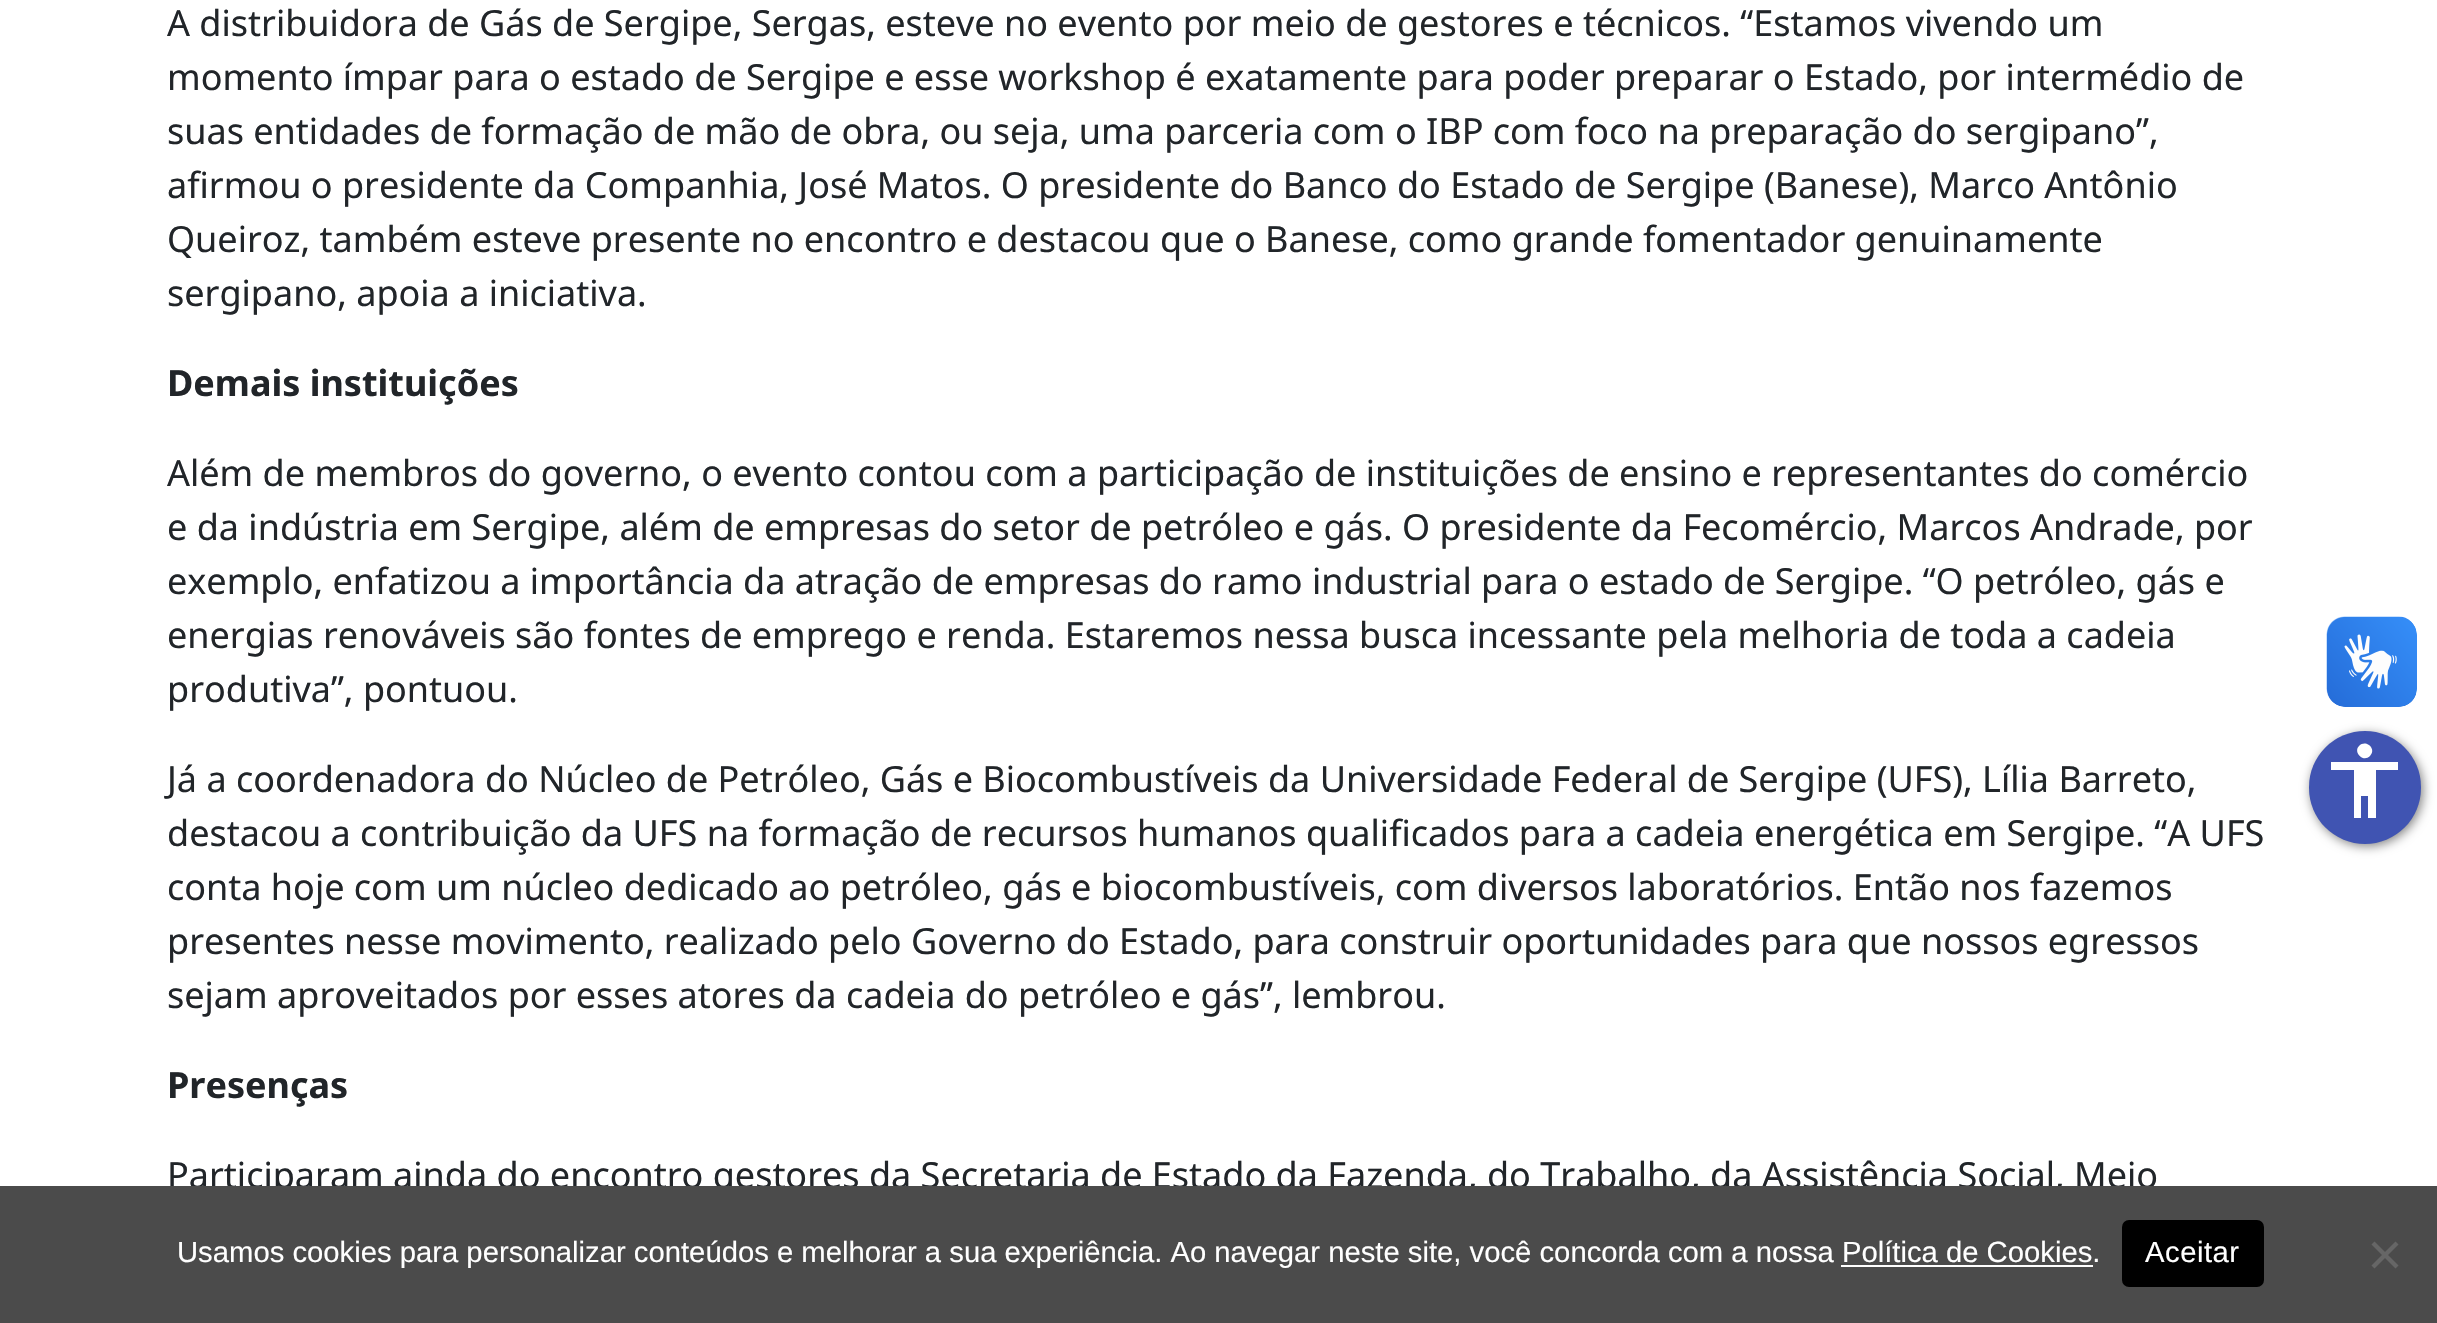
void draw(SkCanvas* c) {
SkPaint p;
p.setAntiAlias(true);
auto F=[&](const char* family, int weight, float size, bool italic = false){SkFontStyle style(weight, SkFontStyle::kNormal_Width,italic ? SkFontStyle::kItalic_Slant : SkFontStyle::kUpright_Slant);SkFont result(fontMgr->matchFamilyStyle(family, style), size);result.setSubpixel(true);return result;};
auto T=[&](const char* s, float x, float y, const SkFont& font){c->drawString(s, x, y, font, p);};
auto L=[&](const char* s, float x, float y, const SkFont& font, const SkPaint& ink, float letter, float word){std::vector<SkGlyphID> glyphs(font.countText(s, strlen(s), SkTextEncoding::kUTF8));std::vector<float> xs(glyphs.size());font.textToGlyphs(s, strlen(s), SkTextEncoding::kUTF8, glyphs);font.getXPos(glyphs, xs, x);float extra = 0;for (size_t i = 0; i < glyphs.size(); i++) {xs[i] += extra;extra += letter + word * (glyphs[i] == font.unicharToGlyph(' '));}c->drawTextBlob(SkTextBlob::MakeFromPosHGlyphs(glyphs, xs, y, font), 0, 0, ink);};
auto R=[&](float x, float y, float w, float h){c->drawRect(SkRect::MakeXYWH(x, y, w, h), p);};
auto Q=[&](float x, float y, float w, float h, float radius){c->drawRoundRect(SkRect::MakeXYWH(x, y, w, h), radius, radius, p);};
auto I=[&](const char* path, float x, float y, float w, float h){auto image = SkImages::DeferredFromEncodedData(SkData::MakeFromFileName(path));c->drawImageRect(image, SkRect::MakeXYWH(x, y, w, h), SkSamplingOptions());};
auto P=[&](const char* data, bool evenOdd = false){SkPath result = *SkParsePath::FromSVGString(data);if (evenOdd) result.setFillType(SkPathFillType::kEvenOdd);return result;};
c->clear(0xffffffff);
auto f1 = F("Noto Sans",400,36);
p.setColor(0xff212529);
T("A distribuidora de Gás de Sergipe, Sergas, esteve no evento por meio de gestores e técnicos. “Estamos vivendo um",167,36,f1);
T("momento ímpar para o estado de Sergipe e esse workshop é exatamente para poder preparar o Estado, por intermédio de",167,90,f1);
T("suas entidades de formação de mão de obra, ou seja, uma parceria com o IBP com foco na preparação do sergipano”,",167,144,f1);
T("afirmou o presidente da Companhia, José Matos. O presidente do Banco do Estado de Sergipe (Banese), Marco Antônio",167,198,f1);
T("Queiroz, também esteve presente no encontro e destacou que o Banese, como grande fomentador genuinamente",167,252,f1);
T("sergipano, apoia a iniciativa.",167,306,f1);
auto f2 = F("Noto Sans",700,36);
T("Demais instituições",167,396,f2);
T("Além de membros do governo, o evento contou com a participação de instituições de ensino e representantes do comércio",167,486,f1);
T("e da indústria em Sergipe, além de empresas do setor de petróleo e gás. O presidente da Fecomércio, Marcos Andrade, por",167,540,f1);
T("exemplo, enfatizou a importância da atração de empresas do ramo industrial para o estado de Sergipe. “O petróleo, gás e",167,594,f1);
T("energias renováveis são fontes de emprego e renda. Estaremos nessa busca incessante pela melhoria de toda a cadeia",167,648,f1);
T("produtiva”, pontuou.",167,702,f1);
T("Já a coordenadora do Núcleo de Petróleo, Gás e Biocombustíveis da Universidade Federal de Sergipe (UFS), Lília Barreto,",167,792,f1);
T("destacou a contribuição da UFS na formação de recursos humanos qualificados para a cadeia energética em Sergipe. “A UFS",167,846,f1);
T("conta hoje com um núcleo dedicado ao petróleo, gás e biocombustíveis, com diversos laboratórios. Então nos fazemos",167,900,f1);
T("presentes nesse movimento, realizado pelo Governo do Estado, para construir oportunidades para que nossos egressos",167,954,f1);
T("sejam aproveitados por esses atores da cadeia do petróleo e gás”, lembrou.",167,1008,f1);
T("Presenças",167,1098,f2);
T("Participaram ainda do encontro gestores da Secretaria de Estado da Fazenda, do Trabalho, da Assistência Social, Meio",167,1188,f1);
I("1.png",2326,616,91,91);
I("2.png",2327,617,90,90);
p.setColor(0xff4b4b4b);
R(0,1186,2437,137);
auto f3 = F("Liberation Sans",400,29.25);
p.setColor(0xffffffff);
T("Usamos cookies para personalizar conteúdos e melhorar a sua experiência. Ao navegar neste site, você concorda com a nossa Política de Cookies.",177,1262,f3);
R(1841,1265,252,2);
p.setColor(0xff000000);
Q(2122,1220,142,67,7);
p.setColor(0xffffffff);
L("Aceitar",2145,1262,f3,p,.5,0);
p.setColor(0xff666666);
c->drawPath(P("M2395.5 1241.5l3 3l-24 24l-3-3z"),p);
c->drawPath(P("M2371.5 1244.5l3-3l24 24l-3 3z"),p);
p.setColor(0x80000000);
p.setMaskFilter(SkMaskFilter::MakeBlur(kNormal_SkBlurStyle, 5.5));
c->drawRoundRect(SkRect::MakeXYWH(2311,734,112,112),56,56,p);
p.setMaskFilter(nullptr);
p.setColor(0xff4054b2);
Q(2309,731,112,113,56);
p.setColor(0xffffffff);
c->drawPath(P("M2398 770h-22v48h-8v-22h-7v22h-7v-48h-23v-8h67zm-39-24c7-7 18 3 11 10c-7 7-17-4-11-10z"),p);
}
